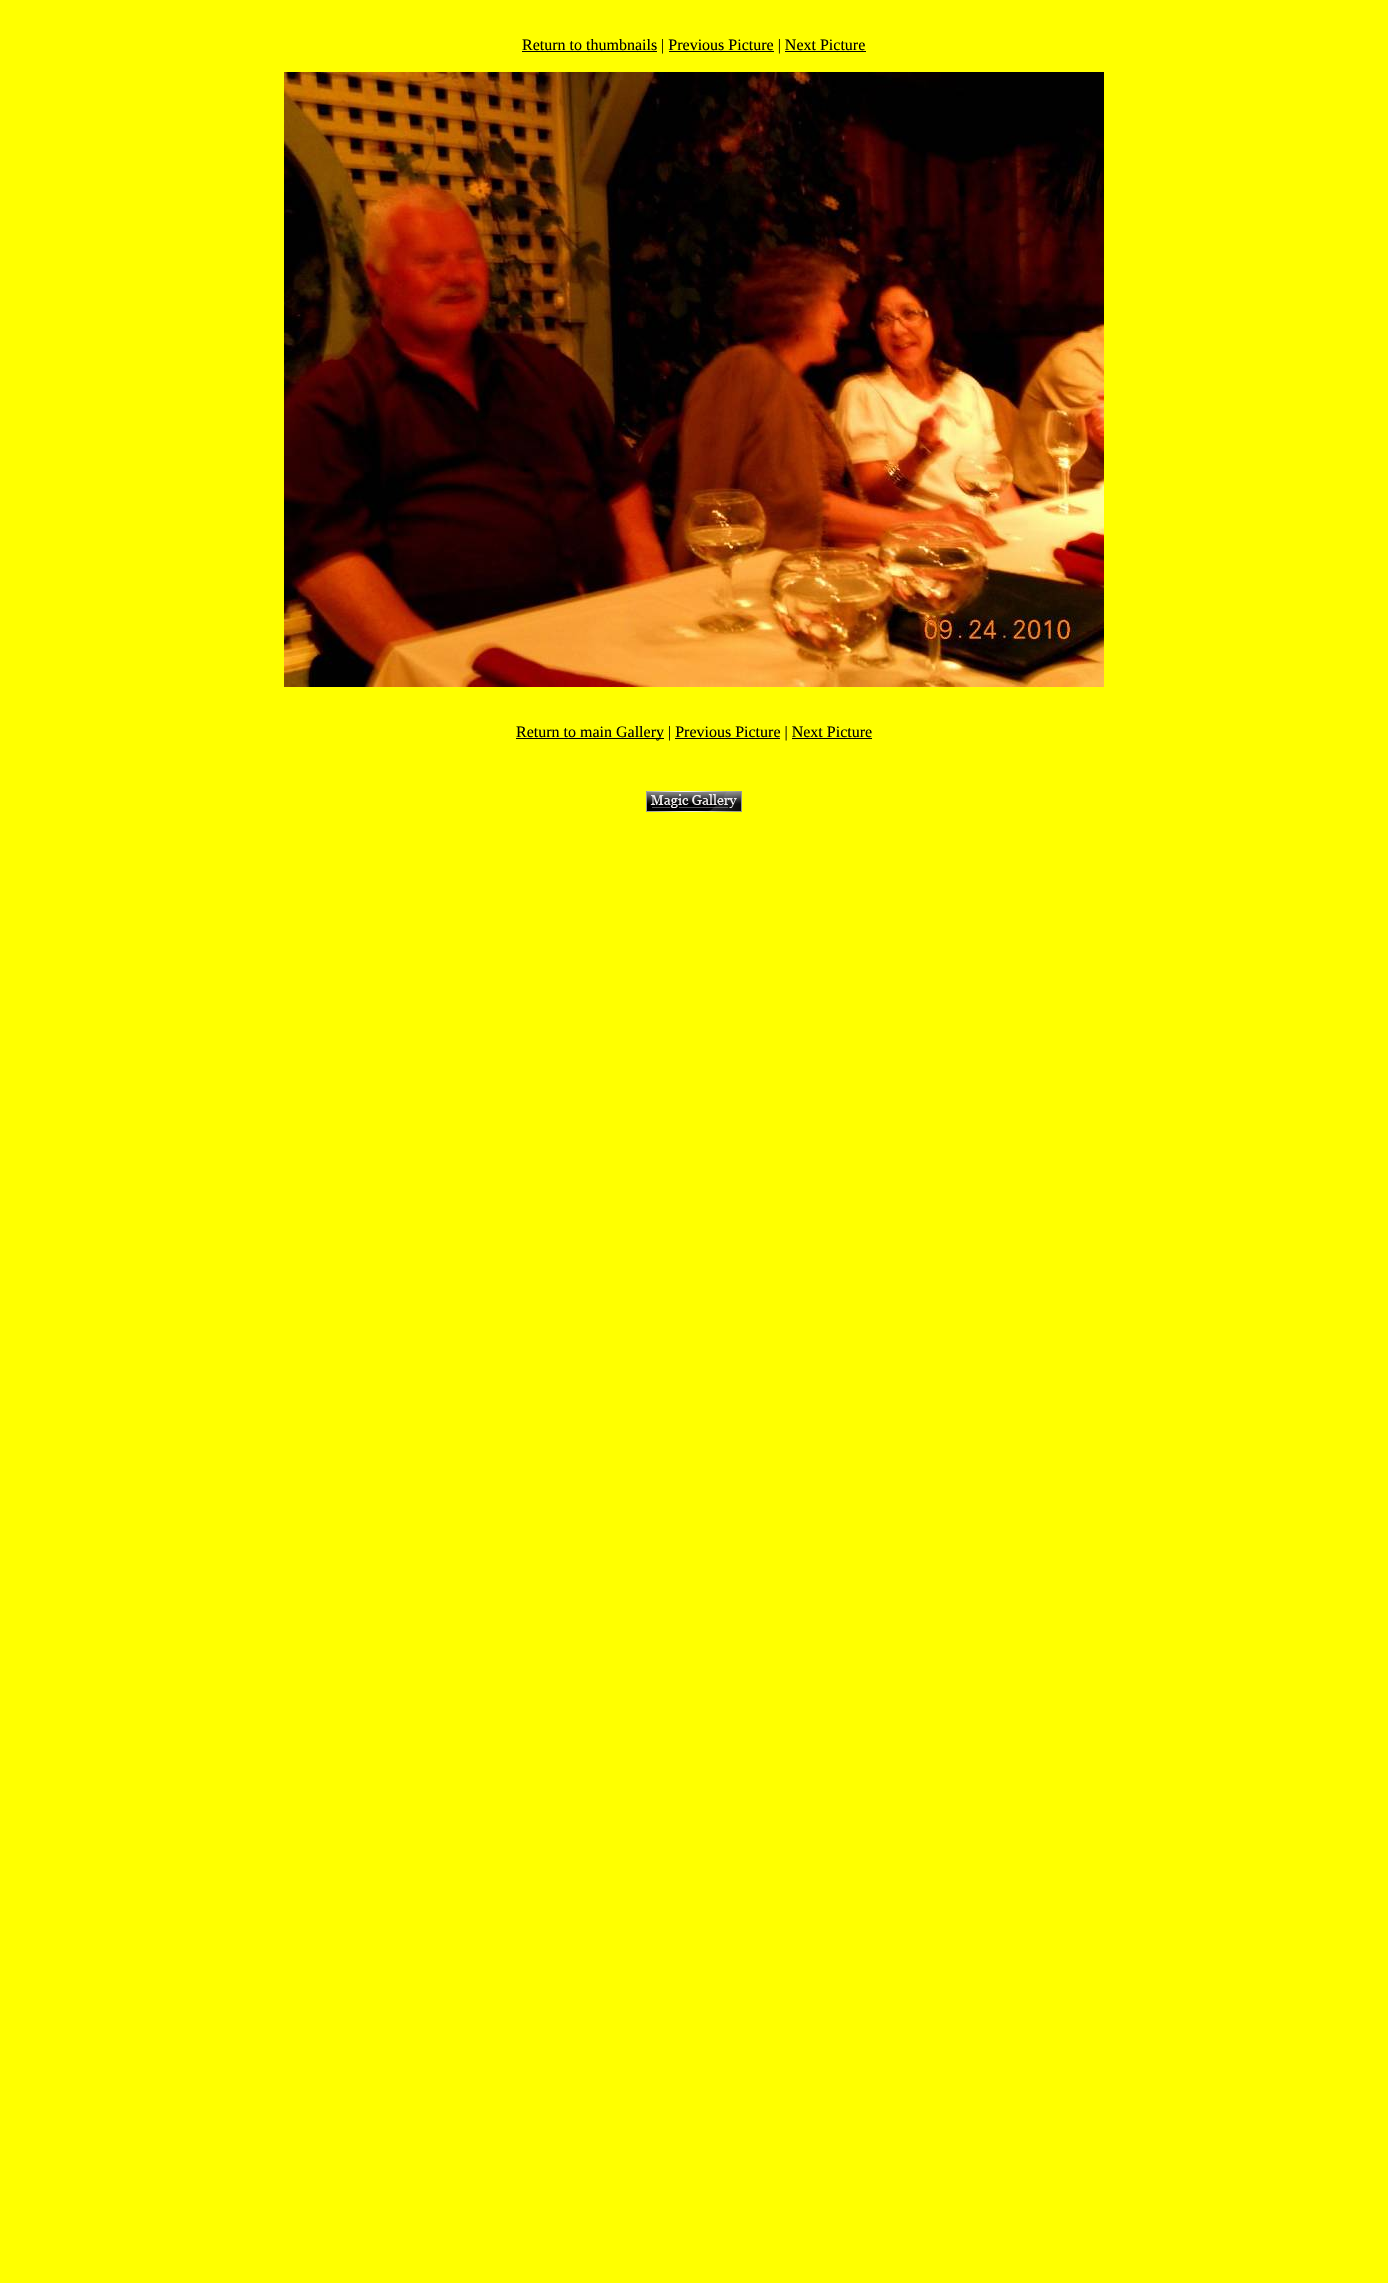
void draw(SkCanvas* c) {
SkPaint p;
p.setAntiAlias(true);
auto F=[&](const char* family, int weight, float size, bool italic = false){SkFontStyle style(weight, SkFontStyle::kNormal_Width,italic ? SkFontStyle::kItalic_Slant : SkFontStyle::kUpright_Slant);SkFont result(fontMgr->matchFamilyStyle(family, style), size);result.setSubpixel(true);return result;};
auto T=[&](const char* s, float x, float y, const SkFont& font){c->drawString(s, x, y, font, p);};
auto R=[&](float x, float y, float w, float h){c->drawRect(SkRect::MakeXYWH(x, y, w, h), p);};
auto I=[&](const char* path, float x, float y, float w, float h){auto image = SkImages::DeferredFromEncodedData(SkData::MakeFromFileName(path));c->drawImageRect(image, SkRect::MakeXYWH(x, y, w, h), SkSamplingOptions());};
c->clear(0xffffff00);
p.setColor(0xff000000);
R(522,51,135,1);
auto f1 = F("Liberation Serif",400,16);
T("Return to thumbnails | Previous Picture | Next Picture",522,50,f1);
R(669,51,105,1);
R(785,51,81,1);
I("1.png",284,72,820,615);
R(516,738,148,1);
T("Return to main Gallery | Previous Picture | Next Picture",516,737,f1);
R(675,738,105,1);
R(792,738,80,1);
I("2.png",646,791,96,21);
}
